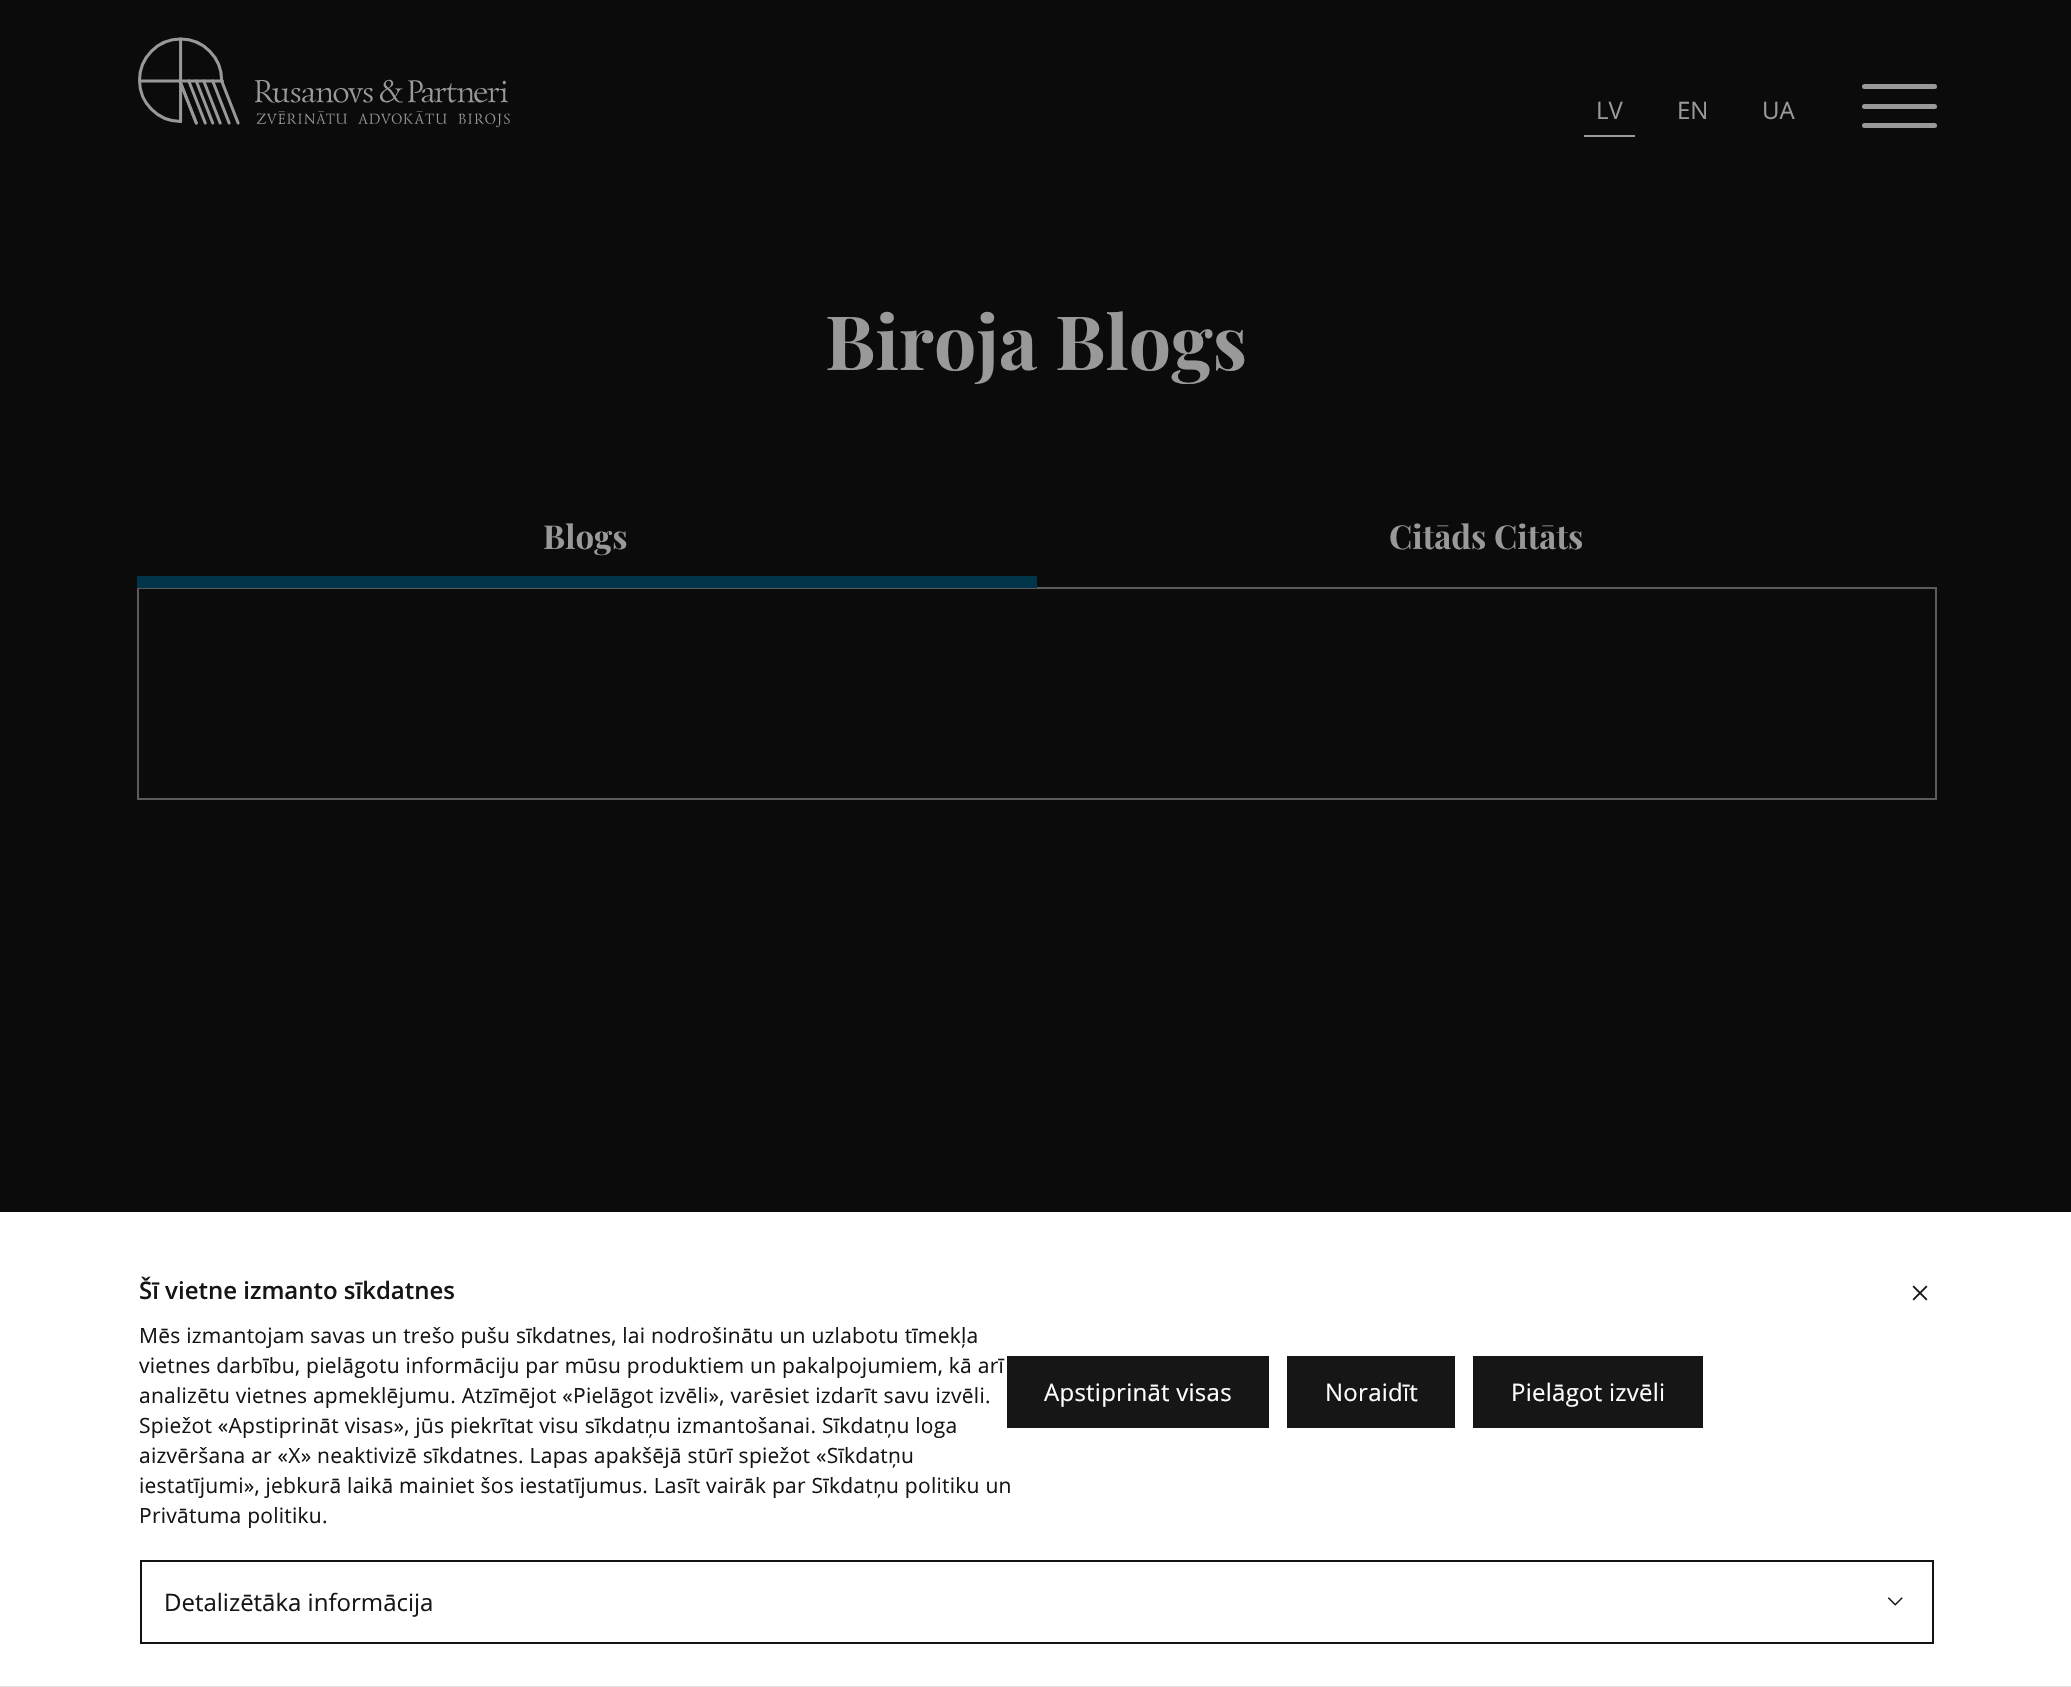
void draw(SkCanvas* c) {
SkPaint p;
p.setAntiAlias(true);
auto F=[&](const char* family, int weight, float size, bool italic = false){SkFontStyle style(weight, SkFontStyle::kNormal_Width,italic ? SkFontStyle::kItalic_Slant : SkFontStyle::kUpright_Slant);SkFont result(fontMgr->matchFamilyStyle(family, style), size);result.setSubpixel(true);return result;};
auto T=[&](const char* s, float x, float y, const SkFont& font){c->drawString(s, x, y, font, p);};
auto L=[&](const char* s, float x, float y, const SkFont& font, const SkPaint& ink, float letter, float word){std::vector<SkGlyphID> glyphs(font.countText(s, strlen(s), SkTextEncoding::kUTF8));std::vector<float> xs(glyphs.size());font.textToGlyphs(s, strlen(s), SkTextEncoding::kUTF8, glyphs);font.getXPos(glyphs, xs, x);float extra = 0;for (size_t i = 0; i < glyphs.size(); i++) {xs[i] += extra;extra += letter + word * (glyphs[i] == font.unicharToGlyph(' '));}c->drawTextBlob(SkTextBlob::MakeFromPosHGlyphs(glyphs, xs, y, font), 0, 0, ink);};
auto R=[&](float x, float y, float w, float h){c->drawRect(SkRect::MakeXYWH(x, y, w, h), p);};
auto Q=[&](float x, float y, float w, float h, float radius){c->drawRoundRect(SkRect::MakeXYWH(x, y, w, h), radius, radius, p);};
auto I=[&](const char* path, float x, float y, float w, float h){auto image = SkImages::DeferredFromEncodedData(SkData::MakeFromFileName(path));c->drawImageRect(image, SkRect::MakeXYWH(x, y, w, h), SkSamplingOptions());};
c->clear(0xff0b0b0b);
I("1.png",138,37,372,91);
auto f1 = F("Open Sans",400,24);
p.setColor(0xff999999);
T("LV",1596,119,f1);
R(1584,135,51,2);
T("EN",1677,119,f1);
T("UA",1762,119,f1);
Q(1862,104,75,5,2.5);
Q(1862,84,75,5,2.5);
Q(1862,123,75,5,2.5);
auto f2 = F("Playfair Display",700,75);
T("Biroja Blogs",825,370,f2);
p.setColor(0xff5b5b5b);
R(137,587,1800,2);
auto f3 = F("Playfair Display",700,33);
p.setColor(0xff999999);
T("Blogs",543,549,f3);
p.setColor(0xff00354a);
R(137,576,900,12);
p.setColor(0xff999999);
T("Citāds Citāts",1389,549,f3);
p.setColor(0xff5b5b5b);
R(1935,588,2,212);
R(137,798,1800,2);
R(137,588,2,212);
p.setColor(0xffffffff);
R(0,1212,2071,474);
p.setColor(0xffe0e0e0);
R(0,1686,2071,1);
auto f4 = F("Open Sans",600,24);
p.setColor(0xff161616);
T("Šī vietne izmanto sīkdatnes",139,1299,f4);
I("2.png",1912,1285,16,16);
auto f5 = F("Open Sans",400,21);
L("Mēs izmantojam savas un trešo pušu sīkdatnes, lai nodrošinātu un uzlabotu tīmekļa",139,1343,f5,p,.25,0);
L("vietnes darbību, pielāgotu informāciju par mūsu produktiem un pakalpojumiem, kā arī",139,1373,f5,p,.25,0);
L("analizētu vietnes apmeklējumu. Atzīmējot «Pielāgot izvēli», varēsiet izdarīt savu izvēli.",139,1403,f5,p,.25,0);
L("Spiežot «Apstiprināt visas», jūs piekrītat visu sīkdatņu izmantošanai. Sīkdatņu loga",139,1433,f5,p,.25,0);
L("aizvēršana ar «X» neaktivizē sīkdatnes. Lapas apakšējā stūrī spiežot «Sīkdatņu",139,1463,f5,p,.25,0);
L("iestatījumi», jebkurā laikā mainiet šos iestatījumus. Lasīt vairāk par Sīkdatņu politiku un",139,1493,f5,p,.25,0);
L("Privātuma politiku.",139,1523,f5,p,.25,0);
R(1007,1356,262,72);
p.setColor(0xffffffff);
L("Apstiprināt visas",1044,1401,f1,p,.25,0);
p.setColor(0xff161616);
R(1287,1356,168,72);
p.setColor(0xffffffff);
L("Noraidīt",1325,1401,f1,p,.25,0);
p.setColor(0xff161616);
R(1473,1356,230,72);
p.setColor(0xffffffff);
L("Pielāgot izvēli",1511,1401,f1,p,.25,0);
p.setStroke(true);
p.setStrokeWidth(2);
p.setColor(0xff131313);
c->drawRect(SkRect::MakeXYWH(141,1561,1792,82),p);
p.setStroke(false);
p.setColor(0xff161616);
T("Detalizētāka informācija",164,1611,f1);
I("3.png",1887,1597,16,9);
}
